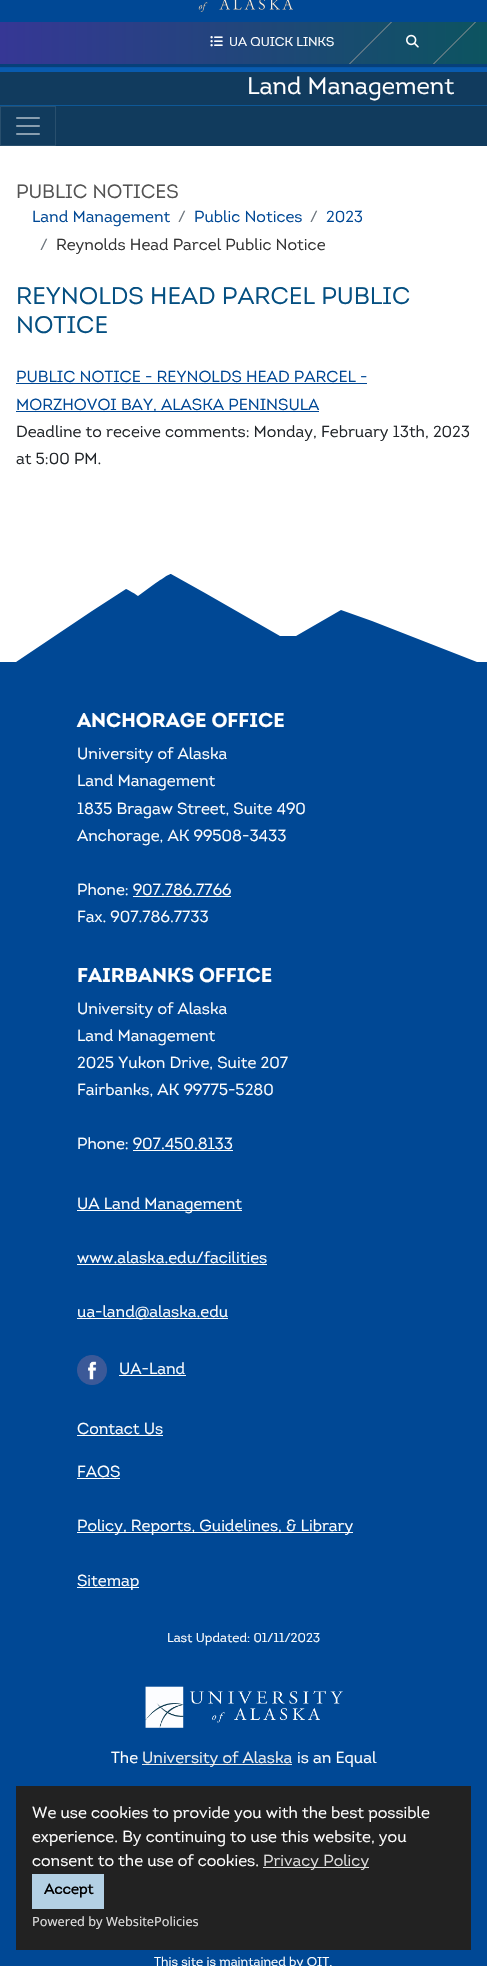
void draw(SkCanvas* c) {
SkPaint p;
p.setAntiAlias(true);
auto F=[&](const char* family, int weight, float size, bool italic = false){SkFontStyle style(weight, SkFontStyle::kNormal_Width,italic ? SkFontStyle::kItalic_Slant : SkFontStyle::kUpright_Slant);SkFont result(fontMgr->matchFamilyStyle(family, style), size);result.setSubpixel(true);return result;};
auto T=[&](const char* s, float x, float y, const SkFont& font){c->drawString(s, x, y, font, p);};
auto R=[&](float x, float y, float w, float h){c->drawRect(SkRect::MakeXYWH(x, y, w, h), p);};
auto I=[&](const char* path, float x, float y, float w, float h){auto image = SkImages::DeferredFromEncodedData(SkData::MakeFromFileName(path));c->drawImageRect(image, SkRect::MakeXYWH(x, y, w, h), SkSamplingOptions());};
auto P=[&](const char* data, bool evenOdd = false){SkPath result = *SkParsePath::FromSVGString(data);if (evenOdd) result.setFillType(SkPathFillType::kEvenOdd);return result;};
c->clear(0xffffffff);
p.setColor(0xff004895);
R(0,0,487,22);
I("1.png",198,0,95,12);
p.setColor(0xff095baf);
R(0,64,487,8);
p.setColor(0x4d000000);
p.setMaskFilter(SkMaskFilter::MakeBlur(kNormal_SkBlurStyle, .5));
c->drawRect(SkRect::MakeXYWH(0,25,487,42),p);
p.setMaskFilter(nullptr);
{
const SkColor colors[] = {0xff363795,0xff0c5460};
const float stops[] = {0,1};
const SkPoint ends[] = {{0,43}, {487,43}};
p.setShader(SkGradientShader::MakeLinear(ends, colors, stops, 2, SkTileMode::kClamp));
p.setAlpha(255);
}
R(0,22,487,42);
p.setShader(nullptr);
p.setColor(0xff999999);
c->drawPath(P("M391 22h1l-42 42h-1z"),p);
I("2.png",210,36,13,11);
auto f1 = F("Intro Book",400,12.75);
p.setColor(0xffffffff);
T("UA QUICK LINKS",229,46,f1);
p.setColor(0xff999999);
c->drawPath(P("M475 22h1l-42 42h-1z"),p);
I("3.png",406,34,13,14);
p.setColor(0xff113b5e);
R(0,72,487,33);
auto f2 = F("Intro Book",400,24);
p.setColor(0xffffffff);
T("Land Management",247,94,f2);
p.setColor(0xff113b5d);
R(1,106,486,40);
p.setColor(0xff0e5897);
R(0,105,487,1);
p.setStroke(true);
p.setStrokeWidth(1);
p.setColor(0xff294f6d);
c->drawRect(SkRect::MakeXYWH(.5,106.5,55,39),p);
I("4.png",16,117,24,18);
auto f3 = F("Intro Book",400,19.25);
p.setStroke(false);
p.setColor(0xff535353);
T("PUBLIC NOTICES",16,198,f3);
auto f4 = F("Intro Book",400,16);
p.setColor(0xff004895);
T("Land Management",32,222,f4);
p.setColor(0xff6c757d);
T("/",178,222,f4);
p.setColor(0xff004895);
T("Public Notices",194,222,f4);
p.setColor(0xff6c757d);
T("/",310,222,f4);
p.setColor(0xff004895);
T("2023",326,222,f4);
p.setColor(0xff6c757d);
T("/",40,250,f4);
p.setColor(0xff333333);
T("Reynolds Head Parcel Public Notice",56,250,f4);
p.setColor(0xff044f81);
T("REYNOLDS HEAD PARCEL PUBLIC",16,304,f2);
T("NOTICE",16,333,f2);
p.setColor(0xff004895);
T("PUBLIC NOTICE - REYNOLDS HEAD PARCEL -",16,382,f4);
R(16,383,351,1);
R(16,411,303,1);
T("MORZHOVOI BAY, ALASKA PENINSULA",16,410,f4);
p.setColor(0xff212529);
T("Deadline to receive comments: Monday, February 13th, 2023",16,437,f4);
T("at 5:00 PM.",16,464,f4);
p.setColor(0xff004895);
c->drawPath(P("M153 585l-15 11c-1-1-11-7-12-7l-34 22l-76 51c154 1 307 1 461 0l-105-41l-31-11l-45 26h-16l-75-43l-34-19c-3 0-16 10-18 11z"),p);
R(0,662,487,1304);
auto f5 = F("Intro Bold",700,20);
p.setColor(0xffffffff);
T("ANCHORAGE OFFICE",77,727,f5);
T("University of Alaska",77,759,f4);
T("Land Management",77,786,f4);
T("1835 Bragaw Street, Suite 490",77,814,f4);
T("Anchorage, AK 99508-3433",77,841,f4);
T("Phone: 907.786.7766",77,895,f4);
R(133,896,98,1);
T("Fax. 907.786.7733",77,922,f4);
T("FAIRBANKS OFFICE",77,982,f5);
T("University of Alaska",77,1014,f4);
T("Land Management",77,1041,f4);
T("2025 Yukon Drive, Suite 207",77,1068,f4);
T("Fairbanks, AK 99775-5280",77,1095,f4);
T("Phone: 907.450.8133",77,1149,f4);
R(133,1150,100,1);
R(77,1210,165,1);
T("UA Land Management",77,1209,f4);
T("www.alaska.edu/facilities",77,1263,f4);
R(77,1264,190,1);
R(77,1318,151,1);
T("ua-land@alaska.edu",77,1317,f4);
I("5.png",77,1355,30,30);
T("UA-Land",119,1374,f4);
R(119,1375,67,1);
T("Contact Us",77,1434,f4);
R(77,1435,86,1);
T("FAQS",77,1477,f4);
R(77,1478,43,1);
R(77,1532,276,1);
T("Policy, Reports, Guidelines, & Library",77,1531,f4);
R(77,1587,62,1);
T("Sitemap",77,1586,f4);
T("Last Updated: 01/11/2023",167,1642,f1);
I("6.png",145,1686,198,42);
T("The",111,1763,f4);
p.setColor(0xffeeeeee);
R(142,1764,150,1);
T("University of Alaska",142,1763,f4);
p.setColor(0xffffffff);
T("is an Equal",297,1763,f4);
T("This site is maintained by OIT.",154,1966,f1);
p.setColor(0xff222222);
R(16,1786,455,164);
p.setColor(0xffffffff);
T("We use cookies to provide you with the best possible",32,1818,f4);
T("experience. By continuing to use this website, you",32,1842,f4);
T("consent to the use of cookies.",32,1866,f4);
p.setColor(0xffdedede);
R(263,1867,106,1);
T("Privacy Policy",263,1866,f4);
p.setColor(0xffb3d0e4);
R(32,1874,72,35);
auto f6 = F("Intro Book",700,14.5);
p.setColor(0xff000000);
T("Accept",44,1894,f6);
auto f7 = F("Noto Sans",400,12.75);
p.setColor(0xffdedede);
T("Powered by WebsitePolicies",32,1926,f7);
}
